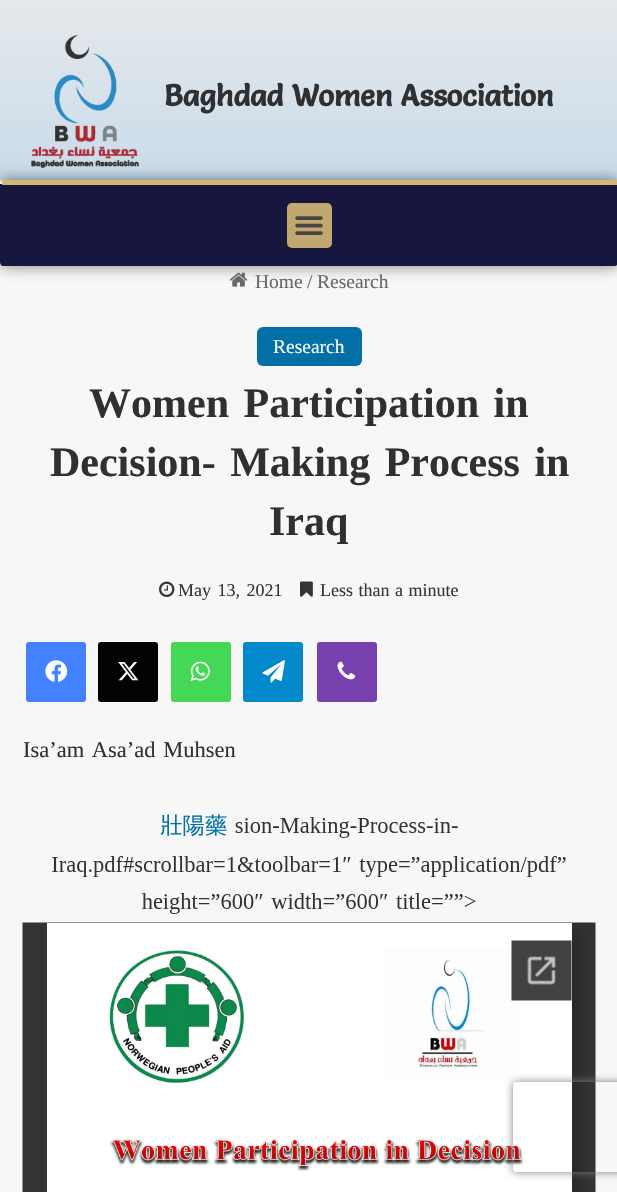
void draw(SkCanvas* c) {
SkPaint p;
p.setAntiAlias(true);
auto F=[&](const char* family, int weight, float size, bool italic = false){SkFontStyle style(weight, SkFontStyle::kNormal_Width,italic ? SkFontStyle::kItalic_Slant : SkFontStyle::kUpright_Slant);SkFont result(fontMgr->matchFamilyStyle(family, style), size);result.setSubpixel(true);return result;};
auto T=[&](const char* s, float x, float y, const SkFont& font){c->drawString(s, x, y, font, p);};
auto L=[&](const char* s, float x, float y, const SkFont& font, const SkPaint& ink, float letter, float word){std::vector<SkGlyphID> glyphs(font.countText(s, strlen(s), SkTextEncoding::kUTF8));std::vector<float> xs(glyphs.size());font.textToGlyphs(s, strlen(s), SkTextEncoding::kUTF8, glyphs);font.getXPos(glyphs, xs, x);float extra = 0;for (size_t i = 0; i < glyphs.size(); i++) {xs[i] += extra;extra += letter + word * (glyphs[i] == font.unicharToGlyph(' '));}c->drawTextBlob(SkTextBlob::MakeFromPosHGlyphs(glyphs, xs, y, font), 0, 0, ink);};
auto R=[&](float x, float y, float w, float h){c->drawRect(SkRect::MakeXYWH(x, y, w, h), p);};
auto Q=[&](float x, float y, float w, float h, float radius){c->drawRoundRect(SkRect::MakeXYWH(x, y, w, h), radius, radius, p);};
auto I=[&](const char* path, float x, float y, float w, float h){auto image = SkImages::DeferredFromEncodedData(SkData::MakeFromFileName(path));c->drawImageRect(image, SkRect::MakeXYWH(x, y, w, h), SkSamplingOptions());};
auto P=[&](const char* data, bool evenOdd = false){SkPath result = *SkParsePath::FromSVGString(data);if (evenOdd) result.setFillType(SkPathFillType::kEvenOdd);return result;};
c->clear(0xfff7f7f7);
{
const SkColor colors[] = {0xffe6e9eb,0xffc9dbea};
const float stops[] = {0,1};
const SkPoint ends[] = {{309,0}, {309,180}};
p.setShader(SkGradientShader::MakeLinear(ends, colors, stops, 2, SkTileMode::kClamp));
p.setAlpha(255);
}
R(0,0,617,180);
I("1.png",30,35,109,133);
auto f1 = F("Salsa",700,30);
p.setShader(nullptr);
p.setColor(0xff2e3031);
T("Baghdad Women Association",164,106,f1);
c->save();
c->clipPath(P("M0 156h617v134h-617zm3 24h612c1.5 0 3 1.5 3 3v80c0 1.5-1.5 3-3 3h-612c-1.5 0-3-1.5-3-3v-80c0-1.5 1.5-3 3-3z",true),true);
p.setColor(0x80000000);
p.setMaskFilter(SkMaskFilter::MakeBlur(kNormal_SkBlurStyle, 7.5));
c->drawRoundRect(SkRect::MakeXYWH(0,180,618,86),3,3,p);
p.setMaskFilter(nullptr);
c->restore();
p.setColor(0xff16163f);
c->drawPath(P("M3 184h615v78c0 2-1 4-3 4h-612c-2 0-3-2-3-4v-78z"),p);
p.setColor(0xffd3b574);
R(2,180,615,5);
p.setColor(0xffc2a76f);
Q(287,203,45,45,5);
I("2.png",295,216,28,19);
I("3.png",229,272,19,15);
auto f2 = F("Liberation Serif",400,19.5);
p.setColor(0xff676767);
T("Home",255,288,f2);
T("/",307,288,f2);
T("Research",317,288,f2);
p.setColor(0xff0270a6);
Q(257,327,105,39,6);
p.setColor(0xffffffff);
T("Research",273,353,f2);
auto f3 = F("Liberation Serif",700,42);
p.setColor(0xff2e3031);
L("Women Participation in",89,417,f3,p,0,4);
L("Decision- Making Process in",50,476,f3,p,0,4);
T("Iraq",269,535,f3);
I("4.png",159,581,16,16);
auto f4 = F("Liberation Serif",400,18);
p.setColor(0xff353535);
L("May 13, 2021",178,596,f4,p,0,2);
I("5.png",300,581,13,16);
L("Less than a minute",320,596,f4,p,0,1);
p.setColor(0xff4281ff);
Q(26,642,60,60,3);
I("6.png",45,660,23,22);
p.setColor(0xff020202);
Q(98,642,60,60,3);
I("7.png",118,662,21,19);
p.setColor(0xff45d856);
Q(171,642,60,60,3);
I("8.png",190,661,20,20);
p.setColor(0xff0289cc);
Q(243,642,60,60,3);
I("9.png",262,660,23,23);
p.setColor(0xff7840ae);
Q(317,642,60,60,3);
I("10.png",337,661,19,19);
auto f5 = F("Liberation Serif",400,22.5);
p.setColor(0xff2e3031);
L("Isa’am Asa’ad Muhsen",23,757,f5,p,0,2);
I("11.png",52,817,514,97);
auto f6 = F("WenQuanYi Zen Hei",500,22.5);
p.setColor(0xff0270a6);
T("壯陽藥",160,833,f6);
I("12.png",22,922,574,270);
c->save();
c->clipPath(P("M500 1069h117v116h-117zm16 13h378c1.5 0 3 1.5 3 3v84c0 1.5-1.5 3-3 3h-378c-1.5 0-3-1.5-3-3v-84c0-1.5 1.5-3 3-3z",true),true);
p.setColor(0xff808080);
p.setMaskFilter(SkMaskFilter::MakeBlur(kNormal_SkBlurStyle, 4));
c->drawRoundRect(SkRect::MakeXYWH(513,1082,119,90),3,3,p);
p.setMaskFilter(nullptr);
c->restore();
}
